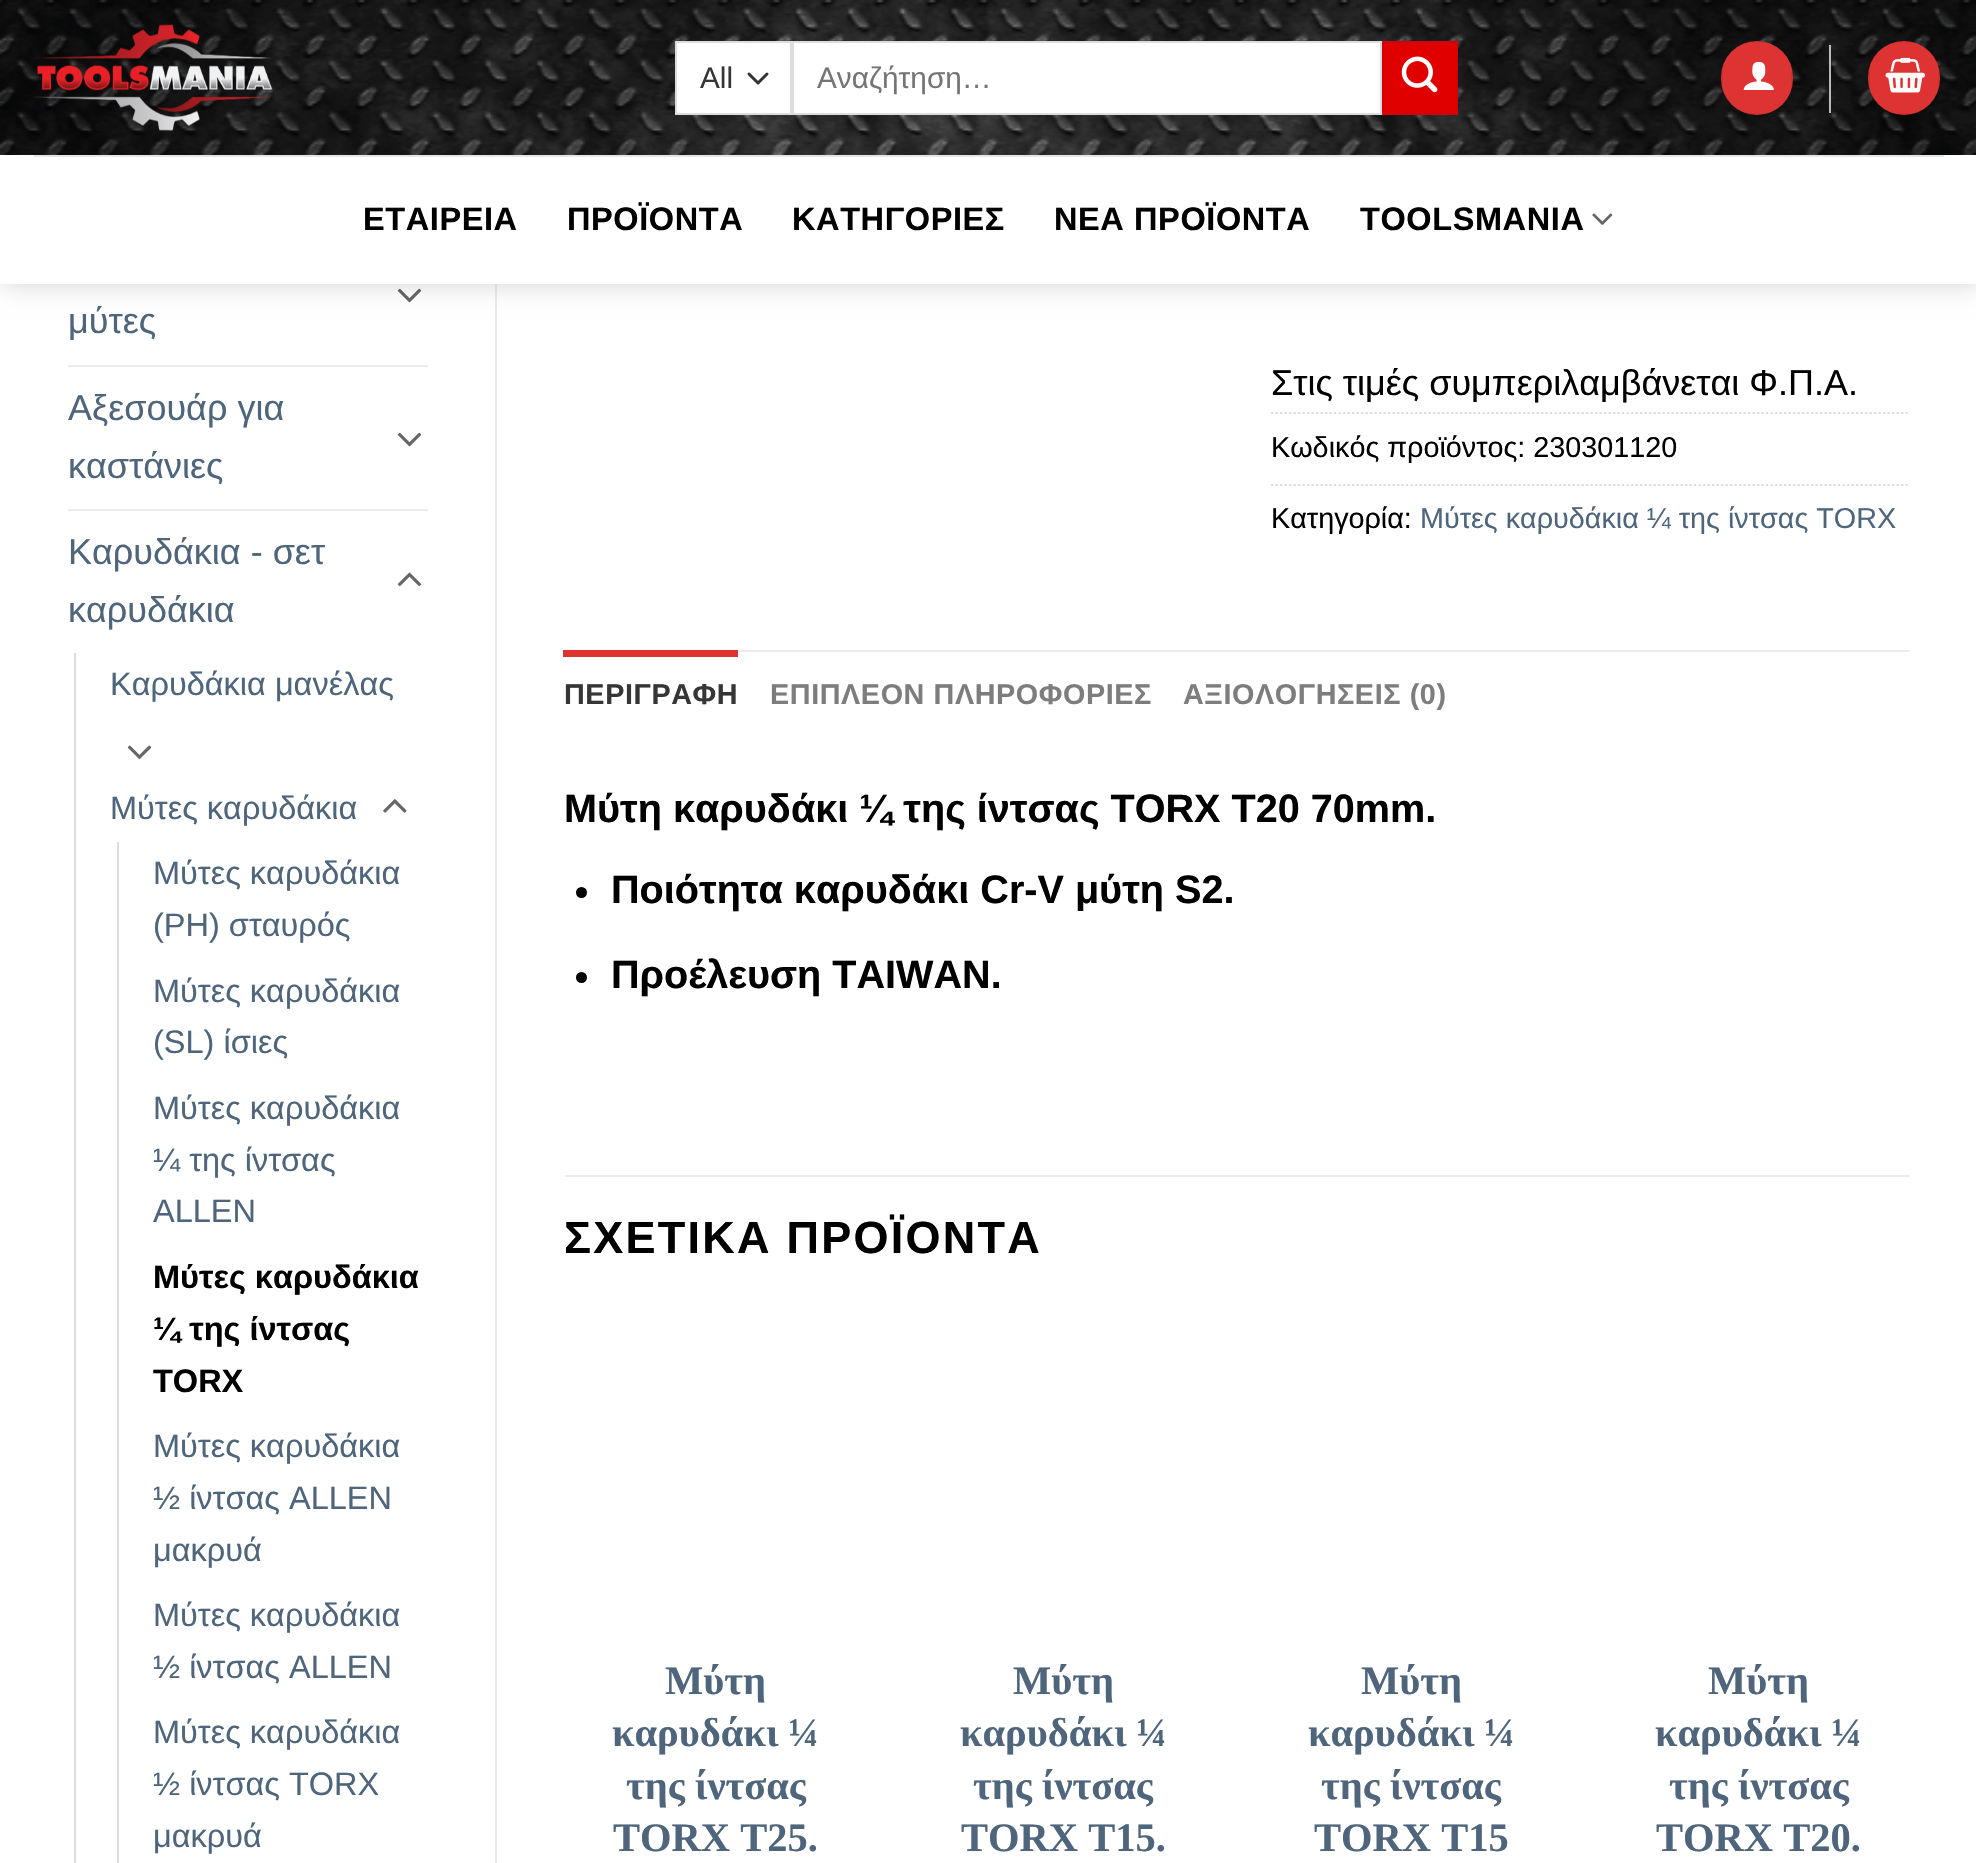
void draw(SkCanvas* c) {
SkPaint p;
p.setAntiAlias(true);
auto F=[&](const char* family, int weight, float size, bool italic = false){SkFontStyle style(weight, SkFontStyle::kNormal_Width,italic ? SkFontStyle::kItalic_Slant : SkFontStyle::kUpright_Slant);SkFont result(fontMgr->matchFamilyStyle(family, style), size);result.setSubpixel(true);return result;};
auto T=[&](const char* s, float x, float y, const SkFont& font){c->drawString(s, x, y, font, p);};
auto L=[&](const char* s, float x, float y, const SkFont& font, const SkPaint& ink, float letter, float word){std::vector<SkGlyphID> glyphs(font.countText(s, strlen(s), SkTextEncoding::kUTF8));std::vector<float> xs(glyphs.size());font.textToGlyphs(s, strlen(s), SkTextEncoding::kUTF8, glyphs);font.getXPos(glyphs, xs, x);float extra = 0;for (size_t i = 0; i < glyphs.size(); i++) {xs[i] += extra;extra += letter + word * (glyphs[i] == font.unicharToGlyph(' '));}c->drawTextBlob(SkTextBlob::MakeFromPosHGlyphs(glyphs, xs, y, font), 0, 0, ink);};
auto R=[&](float x, float y, float w, float h){c->drawRect(SkRect::MakeXYWH(x, y, w, h), p);};
auto Q=[&](float x, float y, float w, float h, float radius){c->drawRoundRect(SkRect::MakeXYWH(x, y, w, h), radius, radius, p);};
auto I=[&](const char* path, float x, float y, float w, float h){auto image = SkImages::DeferredFromEncodedData(SkData::MakeFromFileName(path));c->drawImageRect(image, SkRect::MakeXYWH(x, y, w, h), SkSamplingOptions());};
auto P=[&](const char* data, bool evenOdd = false){SkPath result = *SkParsePath::FromSVGString(data);if (evenOdd) result.setFillType(SkPathFillType::kEvenOdd);return result;};
c->clear(0xffffffff);
I("7.png",397,288,25,15);
p.setColor(0xffececec);
R(495,284,2,1579);
p.setColor(0x26000000);
p.setMaskFilter(SkMaskFilter::MakeBlur(kNormal_SkBlurStyle, 11));
c->drawRect(SkRect::MakeXYWH(2,2,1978,284),p);
p.setMaskFilter(nullptr);
I("1.png",0,0,1976,155);
I("2.png",34,24,239,107);
p.setColor(0xffffffff);
R(677,43,113,70);
p.setStroke(true);
p.setStrokeWidth(3);
p.setStrokeCap(SkPaint::kRound_Cap);
p.setStrokeJoin(SkPaint::kRound_Join);
p.setColor(0xff333333);
c->drawPath(P("M749 74l9 9l9-9"),p);
p.setStrokeWidth(2);
p.setStrokeCap(SkPaint::kButt_Cap);
p.setStrokeJoin(SkPaint::kMiter_Join);
p.setColor(0xffdddddd);
c->drawRect(SkRect::MakeXYWH(676,42,115,72),p);
auto f1 = F("Liberation Sans",400,29.75);
p.setStroke(false);
p.setColor(0xff363636);
T("All",700,88,f1);
p.setColor(0xffffffff);
c->drawRect(SkRect::MakeXYWH(793,42,588,72),p);
p.setStroke(true);
p.setColor(0xffdddddd);
c->drawRect(SkRect::MakeXYWH(793,42,588,72),p);
p.setStroke(false);
p.setColor(0xff757575);
T("Αναζήτηση…",817,88,f1);
p.setColor(0xffe00000);
c->drawRect(SkRect::MakeXYWH(1383,42,74,72),p);
p.setStroke(true);
p.setColor(0xffd50000);
c->drawRect(SkRect::MakeXYWH(1383,42,74,72),p);
I("3.png",1401,56,37,37);
p.setStroke(false);
p.setColor(0xffdd3333);
Q(1721,41,72,74,36);
p.setStroke(true);
p.setColor(0x0d000000);
c->drawRect(SkRect::MakeXYWH(1722,42,70,72),p);
I("4.png",1743,61,31,29);
p.setStroke(false);
p.setColor(0xb3ffffff);
R(1829,45,2,68);
p.setColor(0xffdd3333);
Q(1868,41,72,74,36);
p.setStroke(true);
p.setColor(0x0d000000);
c->drawRect(SkRect::MakeXYWH(1869,42,70,72),p);
I("5.png",1885,57,40,36);
p.setStroke(false);
p.setColor(0xffffffff);
R(0,155,1976,129);
p.setColor(0xffe6e6e6);
R(34,155,1910,2);
auto f2 = F("Liberation Sans",700,32.5);
p.setColor(0xff000000);
L("ΕΤΑΙΡΕΙΑ",363,230,f2,p,.6,0);
L("ΠΡΟΪΟΝΤΑ",567,230,f2,p,.6,0);
L("ΚΑΤΗΓΟΡΙΕΣ",792,230,f2,p,.6,0);
L("ΝΕΑ ΠΡΟΪΟΝΤΑ",1054,230,f2,p,.6,0);
L("TOOLSMANIA",1360,230,f2,p,.6,0);
I("6.png",1592,213,21,12);
auto f3 = F("Liberation Sans",400,36);
p.setColor(0xff4e657b);
T("μύτες",68,333,f3);
p.setColor(0xffececec);
R(68,365,360,2);
p.setColor(0xff4e657b);
T("Αξεσουάρ για",68,420,f3);
T("καστάνιες",68,478,f3);
I("7.png",397,432,25,15);
p.setColor(0xffececec);
R(68,509,360,2);
p.setColor(0xff4e657b);
T("Καρυδάκια - σετ",68,564,f3);
T("καρυδάκια",68,622,f3);
I("8.png",397,572,25,15);
p.setColor(0xffdddddd);
R(74,653,2,1210);
auto f4 = F("Liberation Sans",400,32.5);
p.setColor(0xff4e657b);
T("Καρυδάκια μανέλας",110,695,f4);
I("9.png",127,745,25,14);
T("Μύτες καρυδάκια",110,819,f4);
I("10.png",383,799,24,14);
p.setColor(0xffdddddd);
R(117,842,2,1021);
p.setColor(0xff4e657b);
T("Μύτες καρυδάκια",153,884,f4);
T("(PH) σταυρός",153,936,f4);
T("Μύτες καρυδάκια",153,1002,f4);
T("(SL) ίσιες",153,1053,f4);
T("Μύτες καρυδάκια",153,1119,f4);
T("¼ της ίντσας",153,1171,f4);
T("ALLEN",153,1222,f4);
p.setColor(0xff000000);
T("Μύτες καρυδάκια",153,1288,f2);
T("¼ της ίντσας",153,1340,f2);
T("TORX",153,1392,f2);
p.setColor(0xff4e657b);
T("Μύτες καρυδάκια",153,1457,f4);
T("½ ίντσας ALLEN",153,1509,f4);
T("μακρυά",153,1561,f4);
T("Μύτες καρυδάκια",153,1626,f4);
T("½ ίντσας ALLEN",153,1678,f4);
T("Μύτες καρυδάκια",153,1743,f4);
T("½ ίντσας TORX",153,1795,f4);
T("μακρυά",153,1847,f4);
p.setColor(0xff000000);
T("Στις τιμές συμπεριλαμβάνεται Φ.Π.Α.",1271,395,f3);
p.setStroke(true);
p.setStrokeWidth(2.2);
p.setColor(0xffdddddd);
p.setPathEffect(SkDashPathEffect::Make({{2.25f,2.25f}}, 0));
c->drawPath(P("M1271 413h639"),p);
p.setPathEffect(nullptr);
auto f5 = F("Liberation Sans",400,28.75);
p.setStroke(false);
p.setColor(0xff000000);
T("Κωδικός προϊόντος: 230301120",1271,457,f5);
p.setStroke(true);
p.setColor(0xffdddddd);
p.setPathEffect(SkDashPathEffect::Make({{2.25f,2.25f}}, 0));
c->drawPath(P("M1271 485h639"),p);
p.setPathEffect(nullptr);
p.setStroke(false);
p.setColor(0xff000000);
T("Κατηγορία:",1271,528,f5);
p.setColor(0xff4e657b);
T("Μύτες καρυδάκια ¼ της ίντσας TORX",1420,528,f5);
p.setColor(0xffececec);
R(738,650,1172,2);
p.setColor(0xffdd3333);
R(563,650,175,7);
auto f6 = F("Liberation Sans",700,28.75);
p.setColor(0xff363636);
L("ΠΕΡΙΓΡΑΦΗ",564,704,f6,p,.6,0);
p.setColor(0xff7d7d7d);
L("ΕΠΙΠΛΕΟΝ ΠΛΗΡΟΦΟΡΙΕΣ",770,704,f6,p,.6,0);
L("ΑΞΙΟΛΟΓΗΣΕΙΣ (0)",1183,704,f6,p,.6,0);
auto f7 = F("Liberation Sans",700,39.6);
p.setColor(0xff000000);
T("Μύτη καρυδάκι ¼ της ίντσας TORX T20 70mm.",564,822,f7);
c->drawCircle(581.5,892.5,5.5,p);
T("Ποιότητα καρυδάκι Cr-V μύτη S2.",611,903,f7);
c->drawCircle(581.5,977.5,5.5,p);
T("Προέλευση TAIWAN.",611,988,f7);
p.setColor(0xffececec);
R(565,1175,1345,2);
auto f8 = F("Liberation Sans",700,45);
p.setColor(0xff000000);
L("ΣΧΕΤΙΚΑ ΠΡΟΪΟΝΤΑ",564,1253,f8,p,2.25,0);
auto f9 = F("Liberation Serif",700,40.5);
p.setColor(0xff4e657b);
T("Μύτη",665,1694,f9);
T("καρυδάκι ¼",612,1746,f9);
T("της ίντσας",626,1799,f9);
T("TORX Τ25.",613,1851,f9);
T("Μύτη",1013,1694,f9);
T("καρυδάκι ¼",960,1746,f9);
T("της ίντσας",973,1799,f9);
T("TORX Τ15.",961,1851,f9);
T("Μύτη",1361,1694,f9);
T("καρυδάκι ¼",1308,1746,f9);
T("της ίντσας",1321,1799,f9);
T("TORX T15",1314,1851,f9);
T("Μύτη",1708,1694,f9);
T("καρυδάκι ¼",1655,1746,f9);
T("της ίντσας",1669,1799,f9);
T("TORX Τ20.",1656,1851,f9);
}
